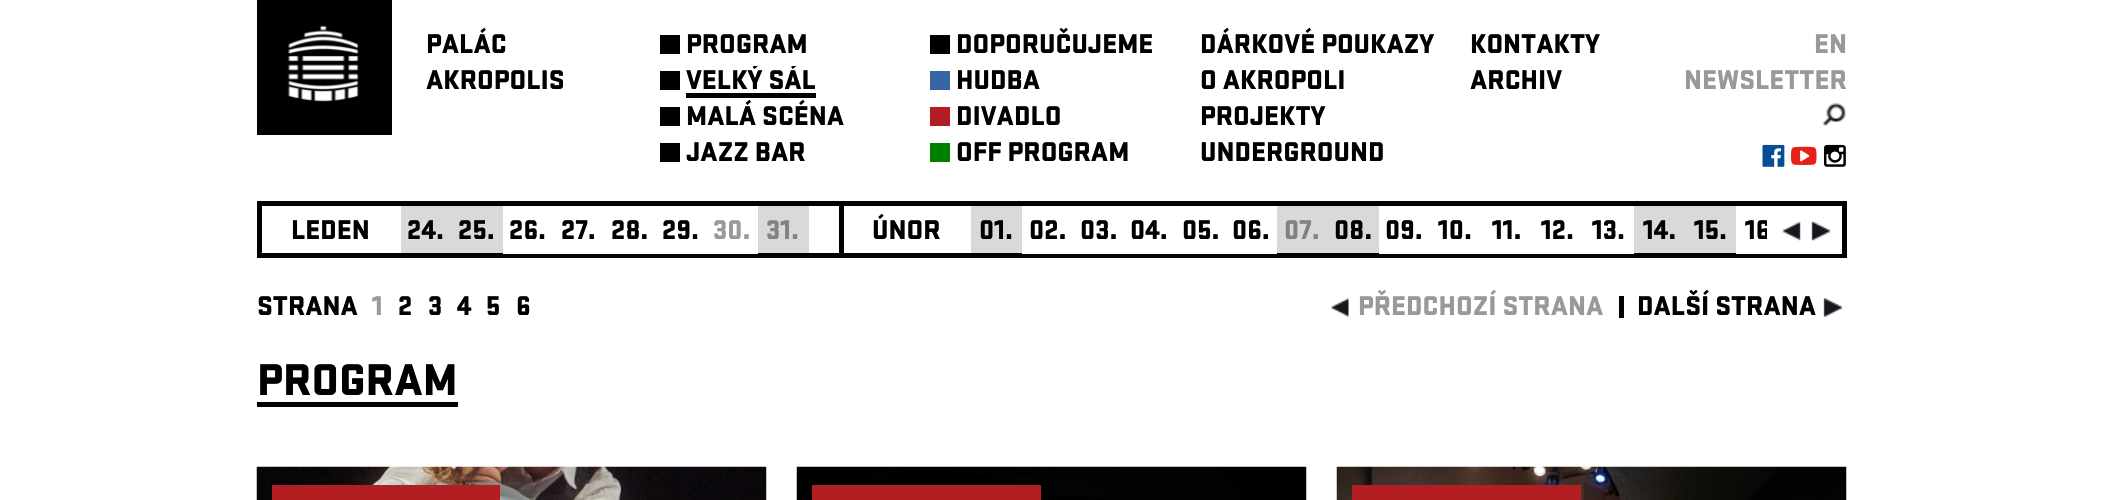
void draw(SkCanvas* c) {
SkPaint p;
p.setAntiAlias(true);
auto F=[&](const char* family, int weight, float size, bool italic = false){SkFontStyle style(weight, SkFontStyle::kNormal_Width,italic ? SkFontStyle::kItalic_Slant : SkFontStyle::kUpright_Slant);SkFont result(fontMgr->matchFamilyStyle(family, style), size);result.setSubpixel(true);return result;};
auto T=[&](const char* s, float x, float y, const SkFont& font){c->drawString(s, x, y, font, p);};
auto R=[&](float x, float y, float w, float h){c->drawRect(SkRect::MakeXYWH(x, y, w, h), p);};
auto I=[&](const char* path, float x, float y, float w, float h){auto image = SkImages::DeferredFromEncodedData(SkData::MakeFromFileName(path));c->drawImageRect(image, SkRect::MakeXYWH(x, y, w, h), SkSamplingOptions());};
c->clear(0xffffffff);
p.setColor(0xff000000);
R(257,0,135,135);
I("1.png",287,25,72,77);
auto f1 = F("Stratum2",900,25.5);
T("PALÁC",426,53,f1);
T("AKROPOLIS",426,89,f1);
R(660,35,20,19);
T("PROGRAM",686,53,f1);
R(660,71,20,19);
R(686,93,130,5);
c->save();
c->clipRect(SkRect::MakeXYWH(686,66,130,27));
T("VELKÝ SÁL",686,89,f1);
c->restore();
R(660,107,20,19);
T("MALÁ SCÉNA",686,125,f1);
R(660,143,20,19);
T("JAZZ BAR",686,161,f1);
R(930,35,20,19);
T("DOPORUČUJEME",956,53,f1);
p.setColor(0xff3864a4);
R(930,71,20,19);
p.setColor(0xff000000);
T("HUDBA",956,89,f1);
p.setColor(0xffb31e22);
R(930,107,20,19);
p.setColor(0xff000000);
T("DIVADLO",956,125,f1);
p.setColor(0xff008000);
R(930,143,20,19);
p.setColor(0xff000000);
T("OFF PROGRAM",956,161,f1);
T("DÁRKOVÉ POUKAZY",1200,53,f1);
T("O AKROPOLI",1200,89,f1);
T("PROJEKTY",1200,125,f1);
T("UNDERGROUND",1200,161,f1);
T("KONTAKTY",1470,53,f1);
T("ARCHIV",1470,89,f1);
p.setColor(0xff999999);
T("EN",1814,53,f1);
T("NEWSLETTER",1684,89,f1);
I("2.png",1822,103,24,23);
I("3.png",1762,144,23,23);
I("4.png",1791,146,26,19);
I("5.png",1824,144,22,23);
p.setStroke(true);
p.setStrokeWidth(5);
p.setColor(0xff000000);
c->drawRect(SkRect::MakeXYWH(259.5,203.5,1585,52),p);
p.setStroke(false);
T("LEDEN",291,239,f1);
p.setColor(0x26000000);
R(401,206,51,47);
p.setColor(0xff000000);
T("24.",407,239,f1);
p.setColor(0x26000000);
R(452,206,51,47);
p.setColor(0xff000000);
T("25.",458,239,f1);
p.setColor(0xffffffff);
R(503,253,255,1);
p.setColor(0xff000000);
T("26.",509,239,f1);
T("27.",561,239,f1);
T("28.",611,239,f1);
T("29.",662,239,f1);
p.setColor(0xff999999);
T("30.",713,239,f1);
p.setColor(0x26000000);
R(758,206,51,47);
p.setColor(0xff828282);
T("31.",766,239,f1);
p.setColor(0xff000000);
R(839,206,5,48);
T("ÚNOR",872,239,f1);
p.setColor(0x26000000);
R(971,206,51,47);
p.setColor(0xff000000);
T("01.",979,239,f1);
p.setColor(0xffffffff);
R(1022,253,255,1);
p.setColor(0xff000000);
T("02.",1029,239,f1);
T("03.",1080,239,f1);
T("04.",1130,239,f1);
T("05.",1182,239,f1);
T("06.",1232,239,f1);
p.setColor(0x26000000);
R(1277,206,51,47);
p.setColor(0xff828282);
T("07.",1284,239,f1);
p.setColor(0x26000000);
R(1328,206,51,47);
p.setColor(0xff000000);
T("08.",1334,239,f1);
p.setColor(0xffffffff);
R(1379,253,255,1);
p.setColor(0xff000000);
T("09.",1385,239,f1);
T("10.",1438,239,f1);
T("11.",1492,239,f1);
T("12.",1541,239,f1);
T("13.",1592,239,f1);
p.setColor(0x26000000);
R(1634,206,51,47);
p.setColor(0xff000000);
T("14.",1643,239,f1);
p.setColor(0x26000000);
R(1685,206,51,47);
p.setColor(0xff000000);
T("15.",1694,239,f1);
p.setColor(0xffffffff);
R(1736,253,31,1);
p.setColor(0xff000000);
T("16",1745,239,f1);
p.setColor(0xffffffff);
R(1767,220,75,34);
I("6.png",1782,221,19,20);
I("7.png",1811,221,20,20);
p.setColor(0xff000000);
T("STRANA",257,315,f1);
p.setColor(0xff999999);
T("1",372,315,f1);
p.setColor(0xff000000);
T("2",398,315,f1);
T("3",428,315,f1);
T("4",457,315,f1);
T("5",486,315,f1);
T("6",516,315,f1);
I("8.png",1330,298,19,19);
p.setColor(0xff999999);
T("PŘEDCHOZÍ STRANA",1358,315,f1);
p.setColor(0xff000000);
R(1619,296,5,22);
T("DALŠÍ STRANA",1637,315,f1);
I("9.png",1823,298,19,19);
R(257,402,201,5);
auto f2 = F("Stratum2",900,42);
T("PROGRAM",257,395,f2);
I("10.png",256,466,511,34);
p.setColor(0xffb31e22);
R(272,485,228,15);
I("11.png",796,466,511,34);
R(812,485,229,15);
I("12.png",1336,466,511,34);
R(1352,485,229,15);
}
